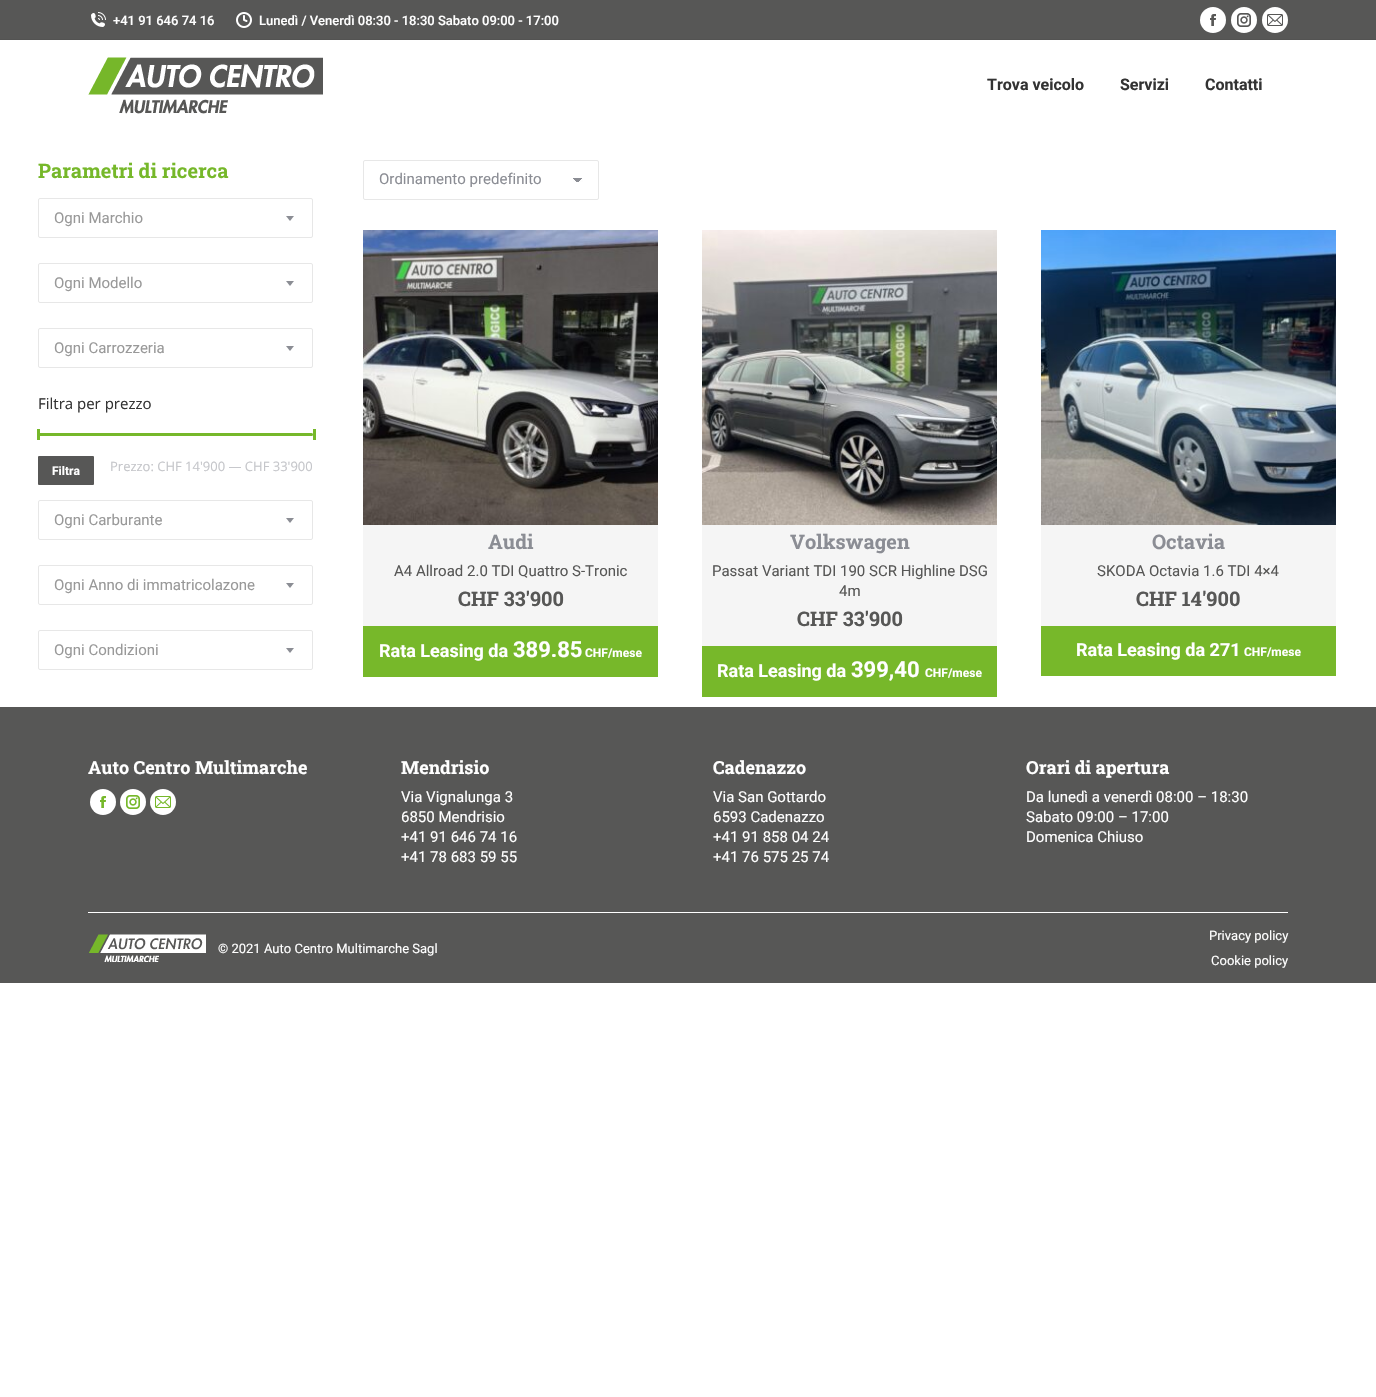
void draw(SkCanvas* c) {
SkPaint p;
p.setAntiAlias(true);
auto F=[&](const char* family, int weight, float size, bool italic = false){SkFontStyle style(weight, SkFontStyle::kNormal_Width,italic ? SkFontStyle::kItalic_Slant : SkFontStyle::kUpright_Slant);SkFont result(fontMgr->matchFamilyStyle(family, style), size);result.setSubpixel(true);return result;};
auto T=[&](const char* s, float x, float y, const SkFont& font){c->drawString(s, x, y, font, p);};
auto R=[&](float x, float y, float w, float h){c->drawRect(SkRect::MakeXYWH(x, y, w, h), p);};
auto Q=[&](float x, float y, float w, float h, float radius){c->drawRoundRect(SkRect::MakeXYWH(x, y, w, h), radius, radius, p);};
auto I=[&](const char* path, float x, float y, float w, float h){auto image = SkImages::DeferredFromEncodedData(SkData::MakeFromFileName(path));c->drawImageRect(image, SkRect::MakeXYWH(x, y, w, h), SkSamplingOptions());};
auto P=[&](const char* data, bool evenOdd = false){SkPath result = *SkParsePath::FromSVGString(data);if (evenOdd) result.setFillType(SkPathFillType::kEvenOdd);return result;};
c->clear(0xffffffff);
p.setColor(0xff575756);
R(0,0,1376,39);
I("1.png",91,12,15,15);
auto f1 = F("Roboto",500,13);
p.setColor(0xffffffff);
T("+41 91 646 74 16",113,25,f1);
I("2.png",236,12,16,16);
T("Lunedì / Venerdì 08:30 - 18:30 Sabato 09:00 - 17:00",259,25,f1);
c->drawCircle(1213,20,13,p);
I("3.png",1210,14,6,12);
c->drawCircle(1244,20,13,p);
I("4.png",1237,13,14,14);
c->drawCircle(1275,20,13,p);
I("5.png",1267,14,16,12);
p.setColor(0xff535352);
R(0,39,1376,1);
I("6.png",88,57,235,57);
auto f2 = F("Roboto",700,16);
p.setColor(0xff333333);
T("Trova veicolo",987,90,f2);
T("Servizi",1120,90,f2);
T("Contatti",1205,90,f2);
auto f3 = F("Roboto Slab",700,20);
p.setColor(0xff76b82a);
T("Parametri di ricerca",38,178,f3);
p.setStroke(true);
p.setStrokeWidth(1);
p.setColor(0xffe7e7e7);
c->drawRoundRect(SkRect::MakeXYWH(38.5,198.5,274,39),1.5,1.5,p);
auto f4 = F("Roboto",400,15);
p.setStroke(false);
p.setColor(0xff999999);
T("Ogni Marchio",54,223,f4);
p.setColor(0xff8b8d94);
c->drawPath(P("M286 216h8l-4 5z"),p);
p.setStroke(true);
p.setColor(0xffe7e7e7);
c->drawRoundRect(SkRect::MakeXYWH(38.5,263.5,274,39),1.5,1.5,p);
p.setStroke(false);
p.setColor(0xff999999);
T("Ogni Modello",54,288,f4);
p.setColor(0xff8b8d94);
c->drawPath(P("M286 281h8l-4 5z"),p);
p.setStroke(true);
p.setColor(0xffe7e7e7);
c->drawRoundRect(SkRect::MakeXYWH(38.5,328.5,274,39),1.5,1.5,p);
p.setStroke(false);
p.setColor(0xff999999);
T("Ogni Carrozzeria",54,353,f4);
p.setColor(0xff8b8d94);
c->drawPath(P("M286 346h8l-4 5z"),p);
auto f5 = F("Open Sans",400,15);
p.setColor(0xff333333);
T("Filtra per prezzo",38,409,f5);
p.setColor(0xffe8e8ea);
R(311,433,2,3);
p.setColor(0xff76b82a);
Q(38,433,275,3,1.5);
R(37,429,3,11);
R(313,429,3,11);
p.setColor(0xff575756);
Q(38,456,56,29,1);
auto f6 = F("Roboto",700,12);
p.setColor(0xffffffff);
T("Filtra",52,475,f6);
auto f7 = F("Open Sans",400,13);
p.setColor(0xffc5c6ca);
T("Prezzo: CHF 14'900 — CHF 33'900",110,471,f7);
p.setStroke(true);
p.setColor(0xffe7e7e7);
c->drawRoundRect(SkRect::MakeXYWH(38.5,500.5,274,39),1.5,1.5,p);
p.setStroke(false);
p.setColor(0xff999999);
T("Ogni Carburante",54,525,f4);
p.setColor(0xff8b8d94);
c->drawPath(P("M286 518h8l-4 5z"),p);
p.setStroke(true);
p.setColor(0xffe7e7e7);
c->drawRoundRect(SkRect::MakeXYWH(38.5,565.5,274,39),1.5,1.5,p);
p.setStroke(false);
p.setColor(0xff999999);
T("Ogni Anno di immatricolazone",54,590,f4);
p.setColor(0xff8b8d94);
c->drawPath(P("M286 583h8l-4 5z"),p);
p.setStroke(true);
p.setColor(0xffe7e7e7);
c->drawRoundRect(SkRect::MakeXYWH(38.5,630.5,274,39),1.5,1.5,p);
p.setStroke(false);
p.setColor(0xff999999);
T("Ogni Condizioni",54,655,f4);
p.setColor(0xff8b8d94);
c->drawPath(P("M286 648h8l-4 5z"),p);
{
const SkColor colors[] = {0xff8b8d94,0xfffdfdfd};
const float stops[] = {.5,.5};
const SkPoint ends[] = {{578,178}, {583,183}};
p.setShader(SkGradientShader::MakeLinear(ends, colors, stops, 2, SkTileMode::kClamp));
p.setAlpha(255);
}
R(578,178,5,4);
{
const SkColor colors[] = {0xfffdfdfd,0xff8b8d94};
const float stops[] = {.5,.5};
const SkPoint ends[] = {{573,183}, {578,178}};
p.setShader(SkGradientShader::MakeLinear(ends, colors, stops, 2, SkTileMode::kClamp));
p.setAlpha(255);
}
R(573,178,5,4);
p.setStroke(true);
p.setShader(nullptr);
p.setColor(0xffe7e7e7);
c->drawRoundRect(SkRect::MakeXYWH(363.5,160.5,235,39),1.5,1.5,p);
p.setStroke(false);
p.setColor(0xff8b8d94);
T("Ordinamento predefinito",379,184,f4);
I("7.png",363,230,295,295);
p.setColor(0xfff5f5f5);
R(363,525,295,101);
p.setColor(0xff8b8d94);
T("Audi",488,549,f3);
p.setColor(0xff575756);
T("A4 Allroad 2.0 TDI Quattro S-Tronic",394,576,f4);
T("CHF 33'900",458,606,f3);
p.setColor(0xff77b82a);
R(363,626,295,51);
auto f8 = F("Roboto",700,18);
p.setColor(0xffffffff);
T("Rata Leasing da",379,657,f8);
auto f9 = F("Roboto",700,22);
T("389.85",513,657,f9);
T("CHF/mese",585,657,f6);
I("8.png",702,230,295,295);
p.setColor(0xfff5f5f5);
R(702,525,295,121);
p.setColor(0xff8b8d94);
T("Volkswagen",790,549,f3);
p.setColor(0xff575756);
T("Passat Variant TDI 190 SCR Highline DSG",712,576,f4);
T("4m",839,596,f4);
T("CHF 33'900",797,626,f3);
p.setColor(0xff77b82a);
R(702,646,295,51);
p.setColor(0xffffffff);
T("Rata Leasing da",717,677,f8);
T("399,40",851,677,f9);
T("CHF/mese",925,677,f6);
I("9.png",1041,230,295,295);
p.setColor(0xfff5f5f5);
R(1041,525,295,101);
p.setColor(0xff8b8d94);
T("Octavia",1152,549,f3);
p.setColor(0xff575756);
T("SKODA Octavia 1.6 TDI 4×4",1097,576,f4);
T("CHF 14'900",1136,606,f3);
p.setColor(0xff77b82a);
R(1041,626,295,50);
p.setColor(0xffffffff);
T("Rata Leasing da 271",1076,656,f8);
T("CHF/mese",1244,656,f6);
p.setColor(0xff575756);
R(0,707,1376,276);
auto f10 = F("Roboto Slab",700,18);
p.setColor(0xffffffff);
T("Auto Centro Multimarche",88,774,f10);
c->drawCircle(103,802,13,p);
I("10.png",100,796,6,12);
c->drawCircle(133,802,13,p);
I("11.png",126,795,14,14);
c->drawCircle(163,802,13,p);
I("12.png",155,796,16,12);
T("Mendrisio",401,774,f10);
T("Via Vignalunga 3",401,802,f4);
T("6850 Mendrisio",401,822,f4);
T("+41 91 646 74 16",401,842,f4);
T("+41 78 683 59 55",401,862,f4);
T("Cadenazzo",713,774,f10);
T("Via San Gottardo",713,802,f4);
T("6593 Cadenazzo",713,822,f4);
T("+41 91 858 04 24",713,842,f4);
T("+41 76 575 25 74",713,862,f4);
T("Orari di apertura",1026,774,f10);
T("Da lunedì a venerdì 08:00 – 18:30",1026,802,f4);
T("Sabato 09:00 – 17:00",1026,822,f4);
T("Domenica Chiuso",1026,842,f4);
R(88,912,1200,1);
I("13.png",89,934,117,28);
auto f11 = F("Roboto",400,13);
T("© 2021 Auto Centro Multimarche Sagl",218,953,f11);
T("Privacy policy",1209,940,f11);
T("Cookie policy",1211,965,f11);
}
